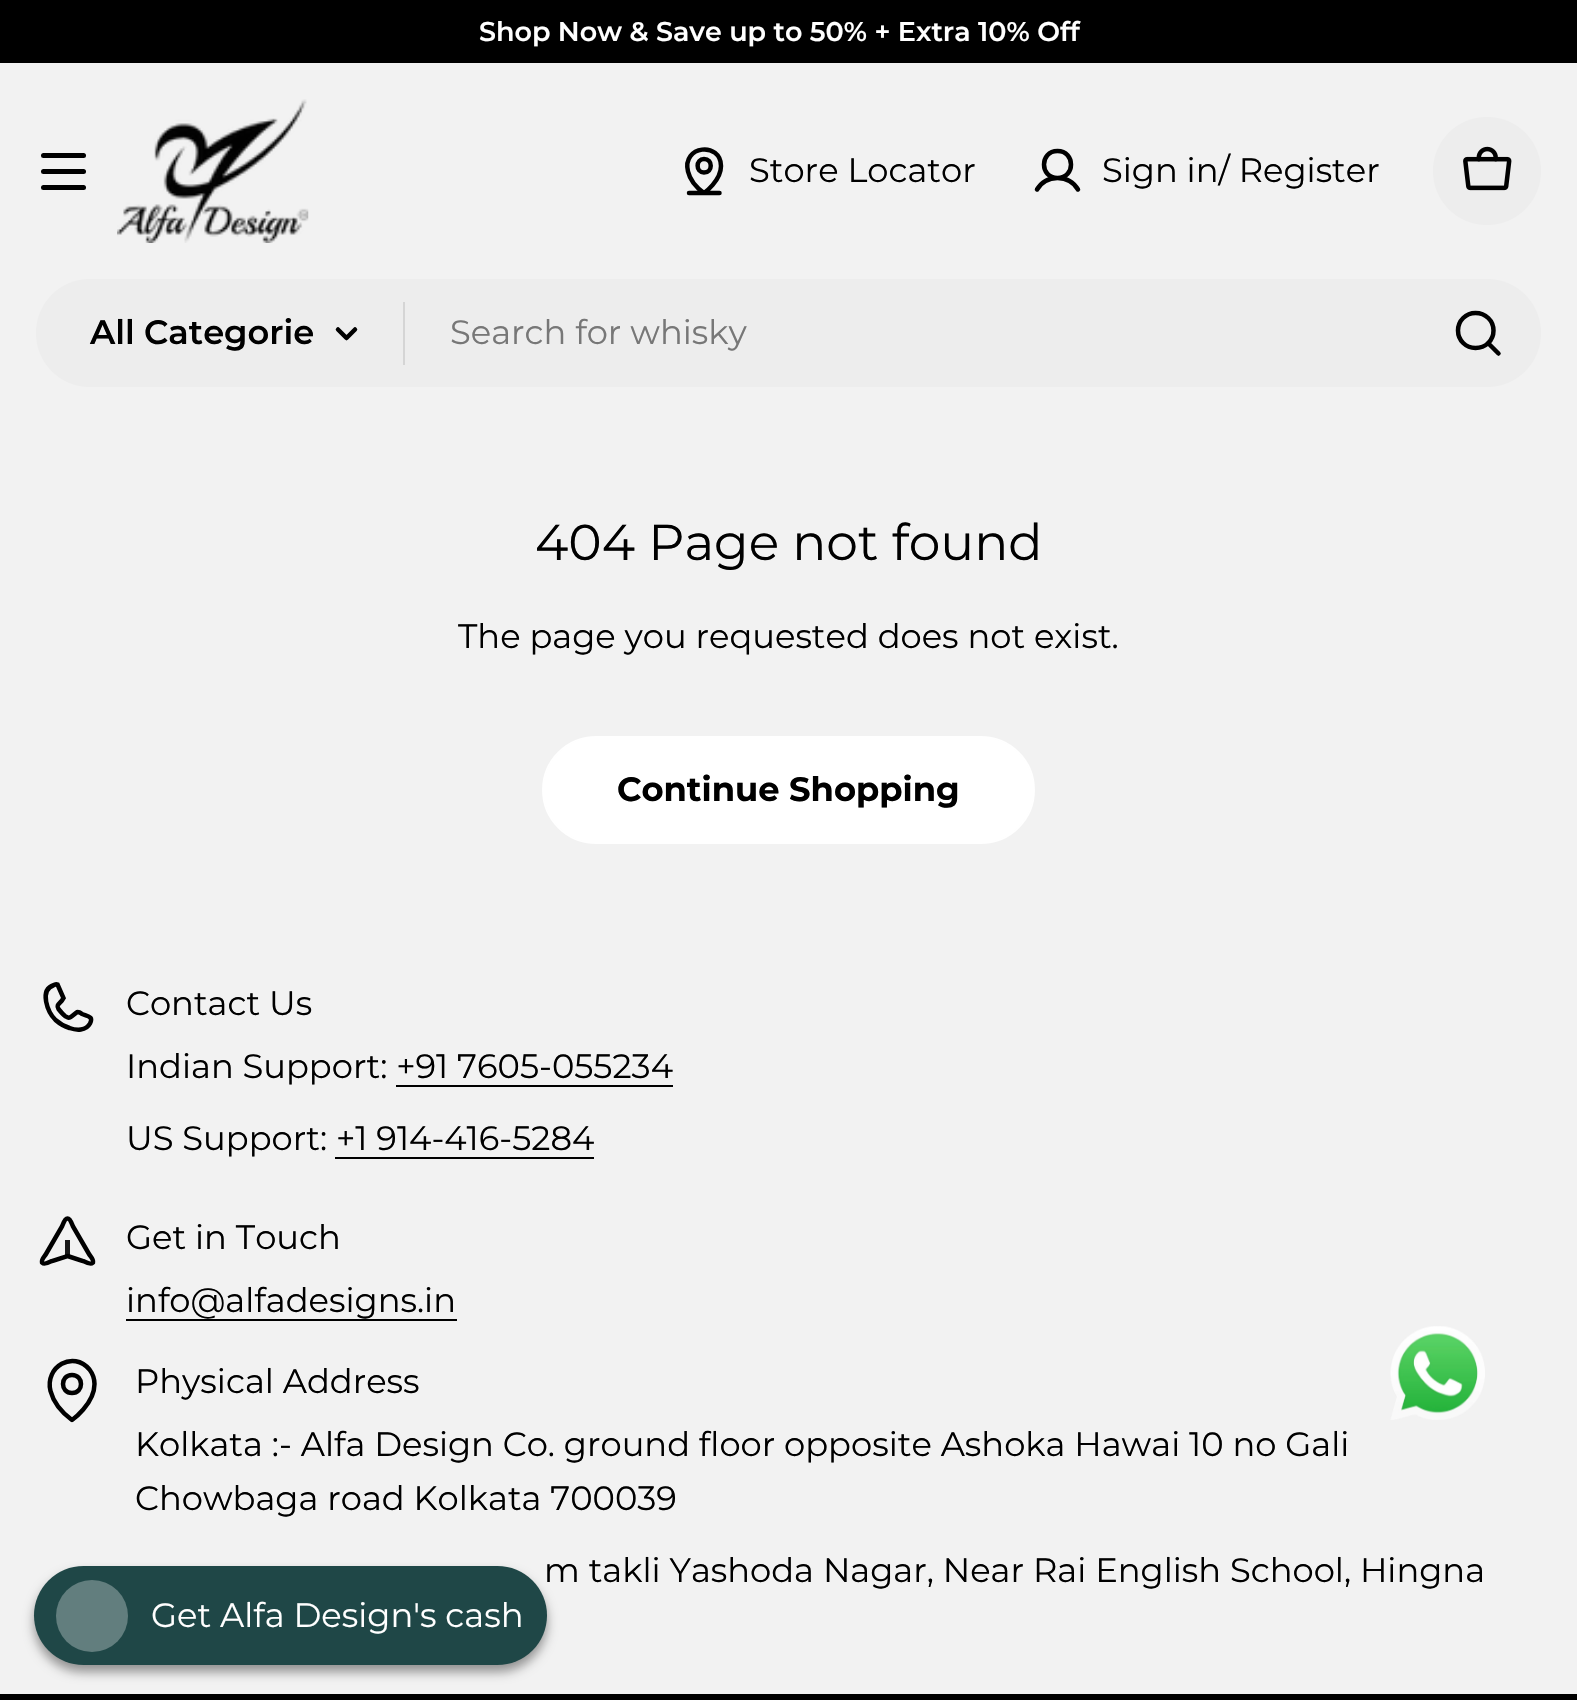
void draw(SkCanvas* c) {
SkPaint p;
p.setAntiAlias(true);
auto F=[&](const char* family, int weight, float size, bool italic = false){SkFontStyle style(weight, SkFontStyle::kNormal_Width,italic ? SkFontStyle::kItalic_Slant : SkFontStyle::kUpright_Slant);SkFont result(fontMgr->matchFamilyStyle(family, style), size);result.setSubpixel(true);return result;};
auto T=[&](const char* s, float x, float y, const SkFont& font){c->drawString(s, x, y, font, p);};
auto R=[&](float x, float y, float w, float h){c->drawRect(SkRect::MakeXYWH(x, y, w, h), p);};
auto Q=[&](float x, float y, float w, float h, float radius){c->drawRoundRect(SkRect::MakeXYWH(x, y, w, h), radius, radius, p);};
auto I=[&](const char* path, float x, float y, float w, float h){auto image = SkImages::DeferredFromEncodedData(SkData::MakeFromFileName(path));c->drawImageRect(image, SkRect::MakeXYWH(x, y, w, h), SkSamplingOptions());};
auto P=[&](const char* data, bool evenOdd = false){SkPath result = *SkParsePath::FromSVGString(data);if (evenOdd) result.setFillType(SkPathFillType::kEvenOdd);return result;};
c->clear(0xfff2f2f2);
p.setColor(0xff000000);
R(0,0,1577,63);
auto f1 = F("Montserrat",600,27);
p.setColor(0xffffffff);
T("Shop Now & Save up to 50% + Extra 10% Off",479,41,f1);
p.setColor(0xff000000);
Q(41,169,45,5,2.5);
Q(41,153,45,5,2.5);
Q(41,185,45,5,2.5);
I("1.png",117,99,192,144);
p.setStroke(true);
p.setStrokeWidth(4.5);
p.setStrokeCap(SkPaint::kRound_Cap);
p.setStrokeJoin(SkPaint::kRound_Join);
c->drawPath(P("M689 193h30.5m-15.5-20.5c9 0 9-13.5 0-13.5c-8.5 0-8.5 13.5 0 13.5zm17-6.5c0 15-17 27-17 27c-7-5-14-13-16-21.5c-6.5-26.5 33-30 33-5.5z"),p);
auto f2 = F("Montserrat",400,33.75);
p.setStroke(false);
T("Store Locator",749,182,f2);
p.setStroke(true);
c->drawPath(P("M1057.5 178c18 0 18-27 0-27c-18 0-18 27 0 27zm-20.5 11.5c9-15.5 32-15.5 41 0"),p);
p.setStroke(false);
T("Sign in/ Register",1102,182,f2);
p.setColor(0xffededed);
c->drawCircle(1487,171,54,p);
I("2.png",1463,146,49,45);
Q(36,279,1505,108,54);
auto f3 = F("Montserrat",600,33.75);
p.setColor(0xff000000);
T("All Categorie",90,344,f3);
p.setStroke(true);
c->drawPath(P("M355 329.5l-8.5 8.5l-8.5-8.5"),p);
p.setStroke(false);
p.setColor(0xffd5d5d5);
R(403,302,2,63);
p.setColor(0xff777777);
T("Search for whisky",450,344,f2);
p.setStroke(true);
p.setColor(0xff000000);
c->drawPath(P("M1475.5 348c10 0 18-7.5 18-17.5c0-10-8-17.5-18-17.5c-9.5 0-17.5 7.5-17.5 17.5c0 10 8 17.5 17.5 17.5zm12.5-5l10.5 10.5"),p);
auto f4 = F("Montserrat",400,50.4);
p.setStroke(false);
T("404 Page not found",535,560,f4);
T("The page you requested does not exist.",458,648,f2);
p.setColor(0xffffffff);
c->drawRoundRect(SkRect::MakeXYWH(543,737,491,106),53,53,p);
p.setStroke(true);
p.setStrokeWidth(2);
p.setStrokeCap(SkPaint::kButt_Cap);
p.setStrokeJoin(SkPaint::kMiter_Join);
c->drawRoundRect(SkRect::MakeXYWH(543,737,491,106),53,53,p);
auto f5 = F("Montserrat",700,33.75);
p.setStroke(false);
p.setColor(0xff000000);
T("Continue Shopping",617,801,f5);
p.setStroke(true);
p.setStrokeWidth(4.5);
c->drawPath(P("M76.5 1012.5c1.5-1.5 4.5 .5 5.5 1.5c6.5 2.5 11.5 2.5 8 9.5c-4 7.5-13.5 7-20.5 4.5c-5-1.5-10-4.5-14-8c-7.5-7.5-17-30-1.5-35c1-.5 2.5-1 3.5-.5l6 13.5l-1.5 2.5c-3 3.5-6 4.5-3.5 8.5c2 2.5 4 5 6.5 7c3.5 2 4 2.5 6.5 .5z"),p);
p.setStroke(false);
T("Contact Us",126,1015,f2);
T("Indian Support: +91 7605-055234",126,1078,f2);
R(396,1085,277,2);
T("US Support: +1 914-416-5284",126,1150,f2);
R(335,1157,259,2);
p.setColor(0xff181818);
R(65,1240,5,16);
p.setStroke(true);
p.setColor(0xff000000);
c->drawPath(P("M67.5 1256l15.5 5c1 .5 7.5 4 9.5 2l.5-.5c1-3-2.5-6-4-8.5l-16-27.5c-.5-1-2.5-8-5.5-8c-3 0-5 7-5.5 8l-16 27.5c-1.5 2.5-5 5.5-4 8.5l.5 .5c2 2 8.5-1.5 9.5-2z"),p);
p.setStroke(false);
T("Get in Touch",126,1249,f2);
T("info@alfadesigns.in",126,1312,f2);
R(126,1319,331,2);
p.setStroke(true);
p.setStrokeCap(SkPaint::kRound_Cap);
p.setStrokeJoin(SkPaint::kRound_Join);
c->drawPath(P("M72 1393c12 0 12-18 0-18c-12 0-12 18 0 18z"),p);
c->drawPath(P("M94.5 1384c0 20-22.5 36-22.5 36c-9.5-7-18.5-17.5-21.5-29c-6-24.5 23-41 39-21.5c3 4 5 9 5 14.5z"),p);
p.setStroke(false);
T("Physical Address",135,1393,f2);
T("Kolkata :- Alfa Design Co. ground floor opposite Ashoka Hawai 10 no Gali",135,1456,f2);
T("Chowbaga road Kolkata 700039",135,1510,f2);
T("m takli Yashoda Nagar, Near Rai English School, Hingna",544,1582,f2);
R(0,1694,1577,6);
I("3.png",1390,1326,95,94);
p.setColor(0x66000000);
p.setMaskFilter(SkMaskFilter::MakeBlur(kNormal_SkBlurStyle, 5.5));
c->drawRoundRect(SkRect::MakeXYWH(34,1573,513,99),49.5,49.5,p);
p.setMaskFilter(nullptr);
p.setColor(0xff1f4747);
Q(34,1566,513,99,49.5);
p.setColor(0xff627e7e);
c->drawCircle(92,1616,36,p);
p.setColor(0xffffffff);
T("Get Alfa Design's cash",151,1627,f2);
}
